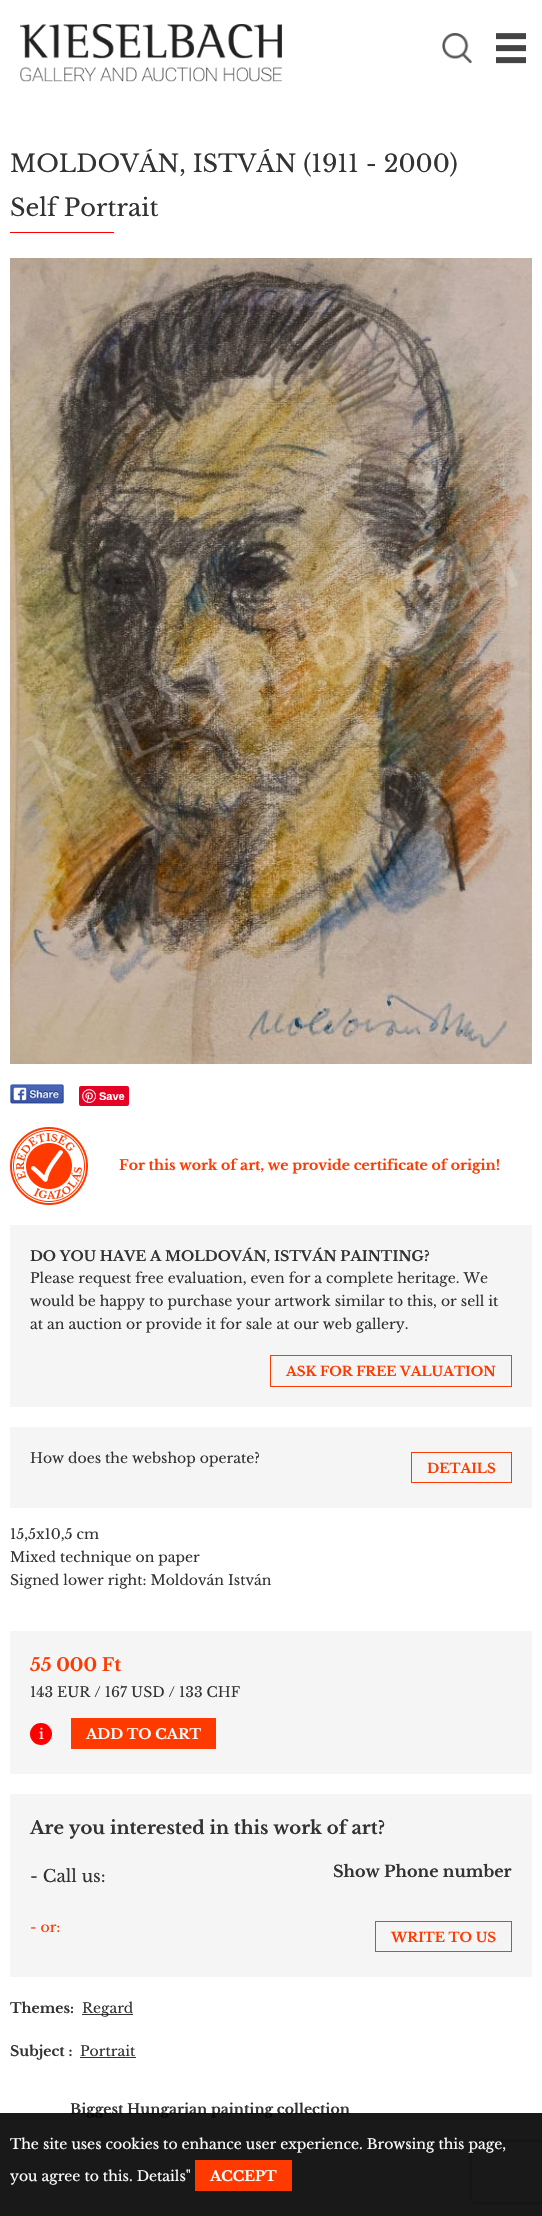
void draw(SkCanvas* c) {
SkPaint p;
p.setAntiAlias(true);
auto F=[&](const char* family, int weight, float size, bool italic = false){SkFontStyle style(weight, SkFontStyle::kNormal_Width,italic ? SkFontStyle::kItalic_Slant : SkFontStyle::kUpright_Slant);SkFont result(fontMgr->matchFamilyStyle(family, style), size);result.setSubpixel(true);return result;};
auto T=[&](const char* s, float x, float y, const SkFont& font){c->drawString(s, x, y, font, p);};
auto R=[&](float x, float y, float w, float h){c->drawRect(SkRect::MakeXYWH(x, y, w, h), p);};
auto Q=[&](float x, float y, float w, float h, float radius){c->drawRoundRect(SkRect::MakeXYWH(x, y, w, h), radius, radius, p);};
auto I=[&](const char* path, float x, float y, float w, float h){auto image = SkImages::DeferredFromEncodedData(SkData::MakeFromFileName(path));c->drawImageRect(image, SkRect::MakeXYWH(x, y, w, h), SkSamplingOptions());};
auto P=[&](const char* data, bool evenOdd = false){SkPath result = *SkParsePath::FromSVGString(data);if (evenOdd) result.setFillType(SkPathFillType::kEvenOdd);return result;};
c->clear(0xffffffff);
I("1.png",20,24,262,58);
I("2.png",442,33,30,30);
I("3.png",496,33,30,31);
auto f1 = F("Libre Baskerville",400,24);
p.setColor(0xff333333);
T("MOLDOVÁN, ISTVÁN (1911 - 2000)",10,172,f1);
T("Self Portrait",10,216,f1);
p.setColor(0xffff0000);
R(10,232,104,1);
I("4.png",10,258,522,806);
I("5.png",10,1084,54,20);
p.setColor(0xffe60023);
Q(79,1086,50,20,2);
I("6.png",82,1089,14,14);
auto f2 = F("Liberation Sans",700,11);
p.setColor(0xffffffff);
T("Save",99,1100,f2);
I("7.png",10,1127,78,78);
auto f3 = F("Libre Baskerville",700,14);
p.setColor(0xffff3a00);
T("For this work of art, we provide certificate of origin!",119,1170,f3);
p.setColor(0xfff5f5f5);
R(10,1225,522,182);
p.setColor(0xff333333);
T("DO YOU HAVE A MOLDOVÁN, ISTVÁN PAINTING?",30,1261,f3);
auto f4 = F("Libre Baskerville",400,14);
T("Please request free evaluation, even for a complete heritage. We",30,1283,f4);
T("would be happy to purchase your artwork similar to this, or sell it",30,1306,f4);
T("at an auction or provide it for sale at our web gallery.",30,1329,f4);
p.setStroke(true);
p.setStrokeWidth(1);
p.setColor(0xffff3a00);
c->drawRect(SkRect::MakeXYWH(270.5,1355.5,241,31),p);
auto f5 = F("Libre Baskerville",700,13.3);
p.setStroke(false);
T("ASK FOR FREE VALUATION",286,1376,f5);
p.setColor(0xfff5f5f5);
R(10,1427,522,81);
p.setColor(0xff333333);
T("How does the webshop operate?",30,1463,f4);
p.setStroke(true);
p.setColor(0xffff3a00);
c->drawRect(SkRect::MakeXYWH(411.5,1452.5,100,30),p);
p.setStroke(false);
T("DETAILS",427,1473,f5);
p.setColor(0xff333333);
T("15,5x10,5 cm",10,1539,f4);
T("Mixed technique on paper",10,1562,f4);
T("Signed lower right: Moldován István",10,1585,f4);
p.setColor(0xfff5f5f5);
R(10,1631,522,143);
auto f6 = F("Libre Baskerville",700,18);
p.setColor(0xffff3a00);
T("55 000 Ft",30,1671,f6);
p.setColor(0xff333333);
T("143 EUR / 167 USD / 133 CHF",30,1697,f4);
p.setColor(0xffff0000);
c->drawCircle(41,1734,11,p);
p.setColor(0xffffffff);
T("i",39,1739,f4);
p.setColor(0xffff3a00);
R(71,1718,145,31);
p.setColor(0xffffffff);
T("ADD TO CART",86,1739,f3);
p.setColor(0xfff5f5f5);
R(10,1794,522,183);
p.setColor(0xff333333);
T("Are you interested in this work of art?",30,1834,f6);
auto f7 = F("Libre Baskerville",400,17);
T("- Call us:",30,1882,f7);
auto f8 = F("Libre Baskerville",700,16);
T("Show Phone number",333,1877,f8);
p.setColor(0xffff3a00);
T("- or:",30,1932,f4);
p.setStroke(true);
c->drawRect(SkRect::MakeXYWH(375.5,1921.5,136,30),p);
p.setStroke(false);
T("WRITE TO US",391,1942,f5);
p.setColor(0xff333333);
T("Themes:",10,2013,f3);
R(82,2014,51,1);
T("Regard",82,2013,f4);
T("Subject :",10,2056,f3);
T("Portrait",80,2056,f4);
R(80,2057,56,1);
T("Biggest Hungarian painting collection",70,2114,f3);
c->save();
c->clipPath(P("M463 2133h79v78h-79zm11 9h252c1 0 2 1 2 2v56c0 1-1 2-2 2h-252c-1 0-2-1-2-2v-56c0-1 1-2 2-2z",true),true);
p.setColor(0xff808080);
p.setMaskFilter(SkMaskFilter::MakeBlur(kNormal_SkBlurStyle, 2.5));
c->drawRoundRect(SkRect::MakeXYWH(472,2142,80,60),2,2,p);
p.setMaskFilter(nullptr);
c->restore();
p.setColor(0xe6000000);
R(0,2113,542,103);
p.setColor(0xffffffff);
T("The site uses cookies to enhance user experience. Browsing this page,",10,2149,f4);
T("you agree to this. Details\"",10,2181,f4);
p.setColor(0xffff3a00);
R(195,2160,97,31);
p.setColor(0xffffffff);
T("ACCEPT",210,2181,f3);
}
